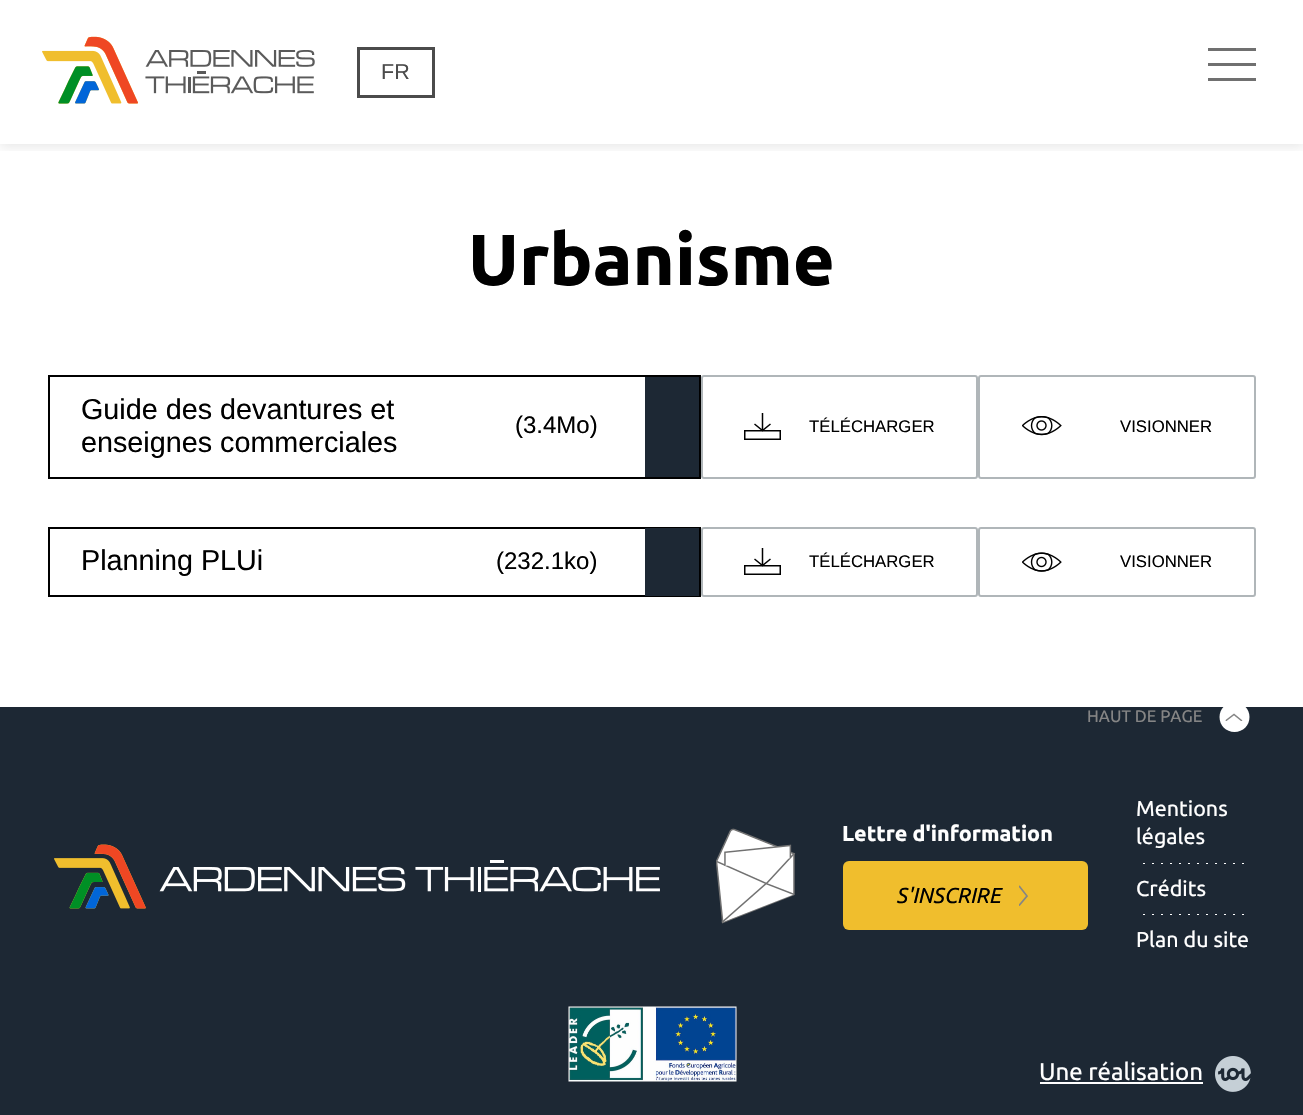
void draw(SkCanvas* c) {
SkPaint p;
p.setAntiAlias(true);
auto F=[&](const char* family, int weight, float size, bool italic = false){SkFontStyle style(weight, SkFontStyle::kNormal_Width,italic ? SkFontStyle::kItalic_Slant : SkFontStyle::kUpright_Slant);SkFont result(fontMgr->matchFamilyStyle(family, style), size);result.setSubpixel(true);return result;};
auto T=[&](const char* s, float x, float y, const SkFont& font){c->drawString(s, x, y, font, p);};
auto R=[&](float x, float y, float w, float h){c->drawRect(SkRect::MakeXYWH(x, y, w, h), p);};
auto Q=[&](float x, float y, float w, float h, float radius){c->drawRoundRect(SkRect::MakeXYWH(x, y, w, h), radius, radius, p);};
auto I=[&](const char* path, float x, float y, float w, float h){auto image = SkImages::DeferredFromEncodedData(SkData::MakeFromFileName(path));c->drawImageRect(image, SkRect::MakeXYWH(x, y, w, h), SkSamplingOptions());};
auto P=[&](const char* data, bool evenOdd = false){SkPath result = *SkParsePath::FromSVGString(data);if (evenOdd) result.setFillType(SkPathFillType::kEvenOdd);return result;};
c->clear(0xffffffff);
c->save();
c->clipRect(SkRect::MakeXYWH(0,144,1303,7));
p.setColor(0x17000000);
p.setMaskFilter(SkMaskFilter::MakeBlur(kNormal_SkBlurStyle, 5.5));
c->drawRect(SkRect::MakeXYWH(0,3,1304,144),p);
p.setMaskFilter(nullptr);
c->restore();
I("1.png",42,36,273,68);
p.setStroke(true);
p.setStrokeWidth(3);
p.setColor(0xff4b4b4b);
c->drawRect(SkRect::MakeXYWH(358.5,48.5,75,48),p);
auto f1 = F("Liberation Sans",400,21.5);
p.setStroke(false);
T("FR",381,79,f1);
p.setColor(0xff707070);
R(1208,48,48,3);
R(1208,63,48,3);
R(1208,78,48,3);
auto f2 = F("Ubuntu",700,72);
p.setColor(0xff000000);
T("Urbanisme",468,285,f2);
p.setStroke(true);
p.setStrokeWidth(2);
c->drawRect(SkRect::MakeXYWH(49,376,651,102),p);
auto f3 = F("Liberation Sans",400,28.75);
p.setStroke(false);
T("Guide des devantures et",81,419,f3);
T("enseignes commerciales",81,452,f3);
auto f4 = F("Liberation Sans",400,24);
T("(3.4Mo)",515,433,f4);
p.setColor(0xff1d2834);
R(645,377,54,100);
p.setStroke(true);
p.setColor(0xffb0b6b9);
c->drawRoundRect(SkRect::MakeXYWH(702,376,275,102),2,2,p);
p.setStrokeWidth(1.5);
p.setColor(0xff000000);
c->drawRect(SkRect::MakeXYWH(744.75,430.75,35.5,8.5),p);
c->drawPath(P("M762.5 413v17.5m-8-6.5l8 6.5l8-6.5"),p);
auto f5 = F("Liberation Sans",400,16.75);
p.setStroke(false);
T("TÉLÉCHARGER",809,432,f5);
p.setStroke(true);
p.setStrokeWidth(2);
p.setColor(0xffb0b6b9);
c->drawRoundRect(SkRect::MakeXYWH(979,376,276,102),2,2,p);
I("2.png",1022,416,40,20);
p.setStroke(false);
p.setColor(0xff000000);
T("VISIONNER",1120,432,f5);
p.setStroke(true);
c->drawRect(SkRect::MakeXYWH(49,528,651,68),p);
p.setStroke(false);
T("Planning PLUi",81,570,f3);
T("(232.1ko)",496,569,f4);
p.setColor(0xff1d2834);
R(645,528,54,68);
p.setStroke(true);
p.setColor(0xffb0b6b9);
c->drawRoundRect(SkRect::MakeXYWH(702,528,275,68),2,2,p);
p.setStrokeWidth(1.5);
p.setColor(0xff000000);
c->drawRect(SkRect::MakeXYWH(744.75,565.75,35.5,8.5),p);
c->drawPath(P("M762.5 548v17.5m-8-6.5l8 6.5l8-6.5"),p);
p.setStroke(false);
T("TÉLÉCHARGER",809,567,f5);
p.setStroke(true);
p.setStrokeWidth(2);
p.setColor(0xffb0b6b9);
c->drawRoundRect(SkRect::MakeXYWH(979,528,276,68),2,2,p);
I("3.png",1022,552,40,20);
p.setStroke(false);
p.setColor(0xff000000);
T("VISIONNER",1120,567,f5);
p.setColor(0xff1d2834);
R(0,707,1303,408);
auto f6 = F("Ubuntu",400,16.75);
p.setColor(0xff858585);
T("HAUT DE PAGE",1087,722,f6);
p.setColor(0xffffffff);
c->drawPath(P("M1219.5 717c0-8 6.5-15 15-15c8.5 0 15 7 15 15c0 8.5-6.5 15-15 15c-8.5 0-15-6.5-15-15z"),p);
c->save();
c->clipPath(P("M1225.5 721v-8h18v8z"),true);
p.setStroke(true);
p.setStrokeWidth(1.5);
p.setStrokeCap(SkPaint::kRound_Cap);
p.setColor(0xff858585);
c->drawPath(P("M1226 720.5l8-6l7.5 6"),p);
c->restore();
I("4.png",54,844,606,65);
I("5.png",716,828,80,96);
auto f7 = F("Ubuntu",700,21.5);
p.setStroke(false);
p.setColor(0xffffffff);
T("Lettre d'information",842,841,f7);
p.setColor(0xfff0be2d);
Q(843,861,245,69,6);
auto f8 = F("Ubuntu",400,21.5,true);
p.setColor(0xff000000);
T("S'INSCRIRE",896,903,f8);
c->save();
c->clipRect(SkRect::MakeXYWH(1019,885,9,21));
p.setStroke(true);
p.setStrokeWidth(1.7);
p.setColor(0xff858585);
c->drawPath(P("M1019.5 886.5l7.5 9.5l-7.5 9"),p);
c->restore();
p.setStroke(false);
p.setColor(0xffffffff);
R(1143,863,2,1);
R(1152,863,2,1);
R(1161,863,2,1);
R(1170,863,2,1);
R(1179,863,2,1);
R(1188,863,2,1);
R(1197,863,2,1);
R(1206,863,2,1);
R(1215,863,2,1);
R(1224,863,2,1);
R(1233,863,2,1);
R(1242,863,2,1);
auto f9 = F("Ubuntu",400,21.5);
T("Mentions",1136,816,f9);
T("légales",1136,844,f9);
R(1143,914,2,1);
R(1152,914,2,1);
R(1161,914,2,1);
R(1170,914,2,1);
R(1179,914,2,1);
R(1188,914,2,1);
R(1197,914,2,1);
R(1206,914,2,1);
R(1215,914,2,1);
R(1224,914,2,1);
R(1233,914,2,1);
R(1242,914,2,1);
T("Crédits",1136,896,f9);
T("Plan du site",1136,947,f9);
I("6.png",568,1006,169,76);
auto f10 = F("Ubuntu",400,24);
T("Une réalisation",1039,1080,f10);
R(1040,1082,163,2);
I("7.png",1215,1056,36,36);
}
